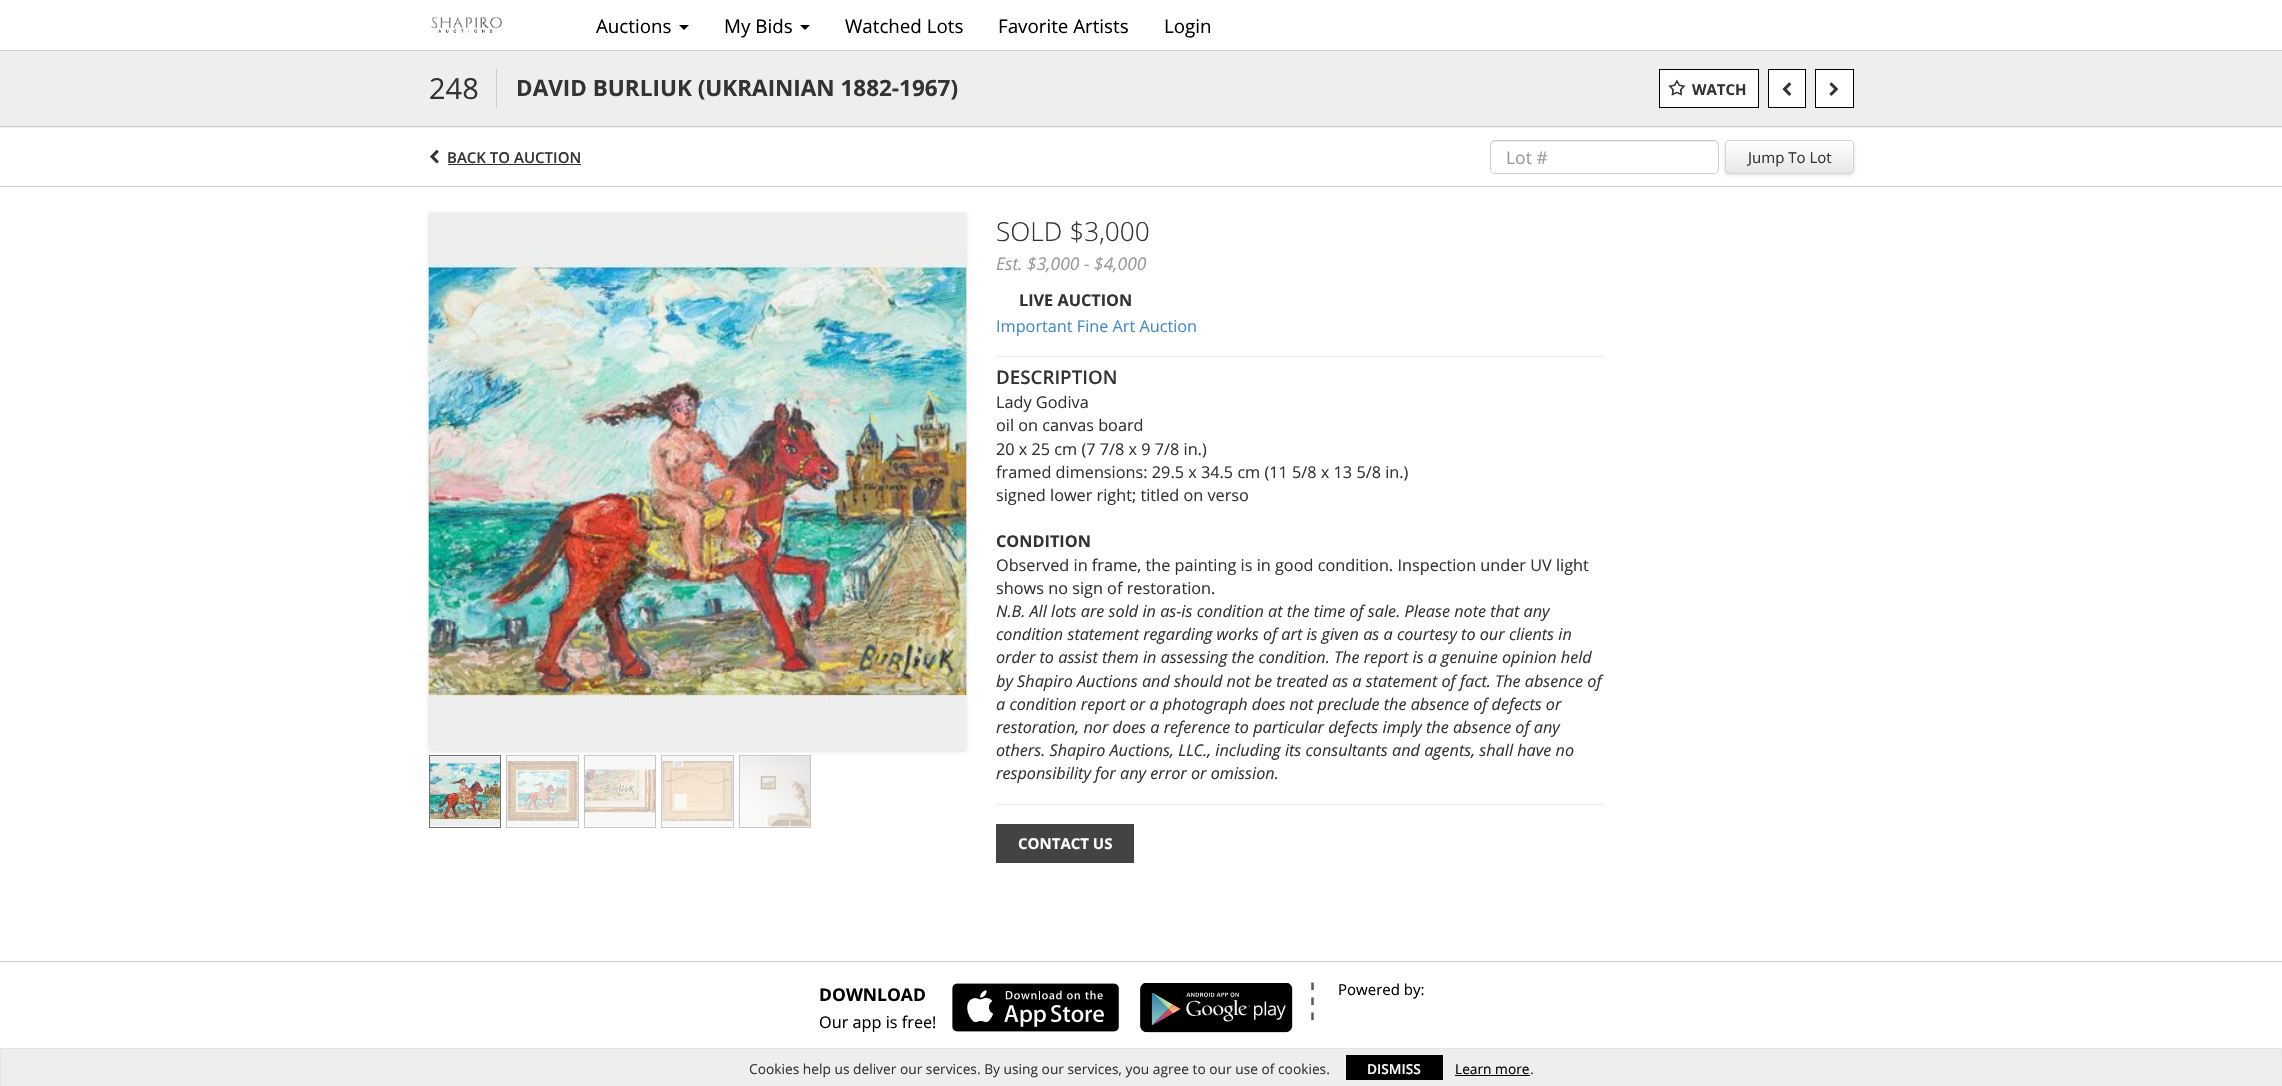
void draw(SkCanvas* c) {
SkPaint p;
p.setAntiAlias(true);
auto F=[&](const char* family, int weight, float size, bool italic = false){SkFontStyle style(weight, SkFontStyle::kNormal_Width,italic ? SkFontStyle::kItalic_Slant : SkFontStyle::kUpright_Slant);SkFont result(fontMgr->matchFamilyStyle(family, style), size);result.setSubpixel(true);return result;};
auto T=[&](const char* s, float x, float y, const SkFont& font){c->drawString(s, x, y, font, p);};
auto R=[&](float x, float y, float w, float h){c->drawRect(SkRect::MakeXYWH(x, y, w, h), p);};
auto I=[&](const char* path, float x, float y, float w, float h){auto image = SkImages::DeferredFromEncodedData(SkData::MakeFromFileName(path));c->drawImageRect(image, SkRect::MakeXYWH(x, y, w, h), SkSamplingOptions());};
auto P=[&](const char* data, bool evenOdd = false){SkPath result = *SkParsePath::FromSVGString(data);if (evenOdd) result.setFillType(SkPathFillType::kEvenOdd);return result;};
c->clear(0xffffffff);
I("1.png",431,17,71,16);
auto f1 = F("Open Sans",400,18.75);
p.setColor(0xff000000);
T("Auctions",596,33,f1);
c->drawPath(P("M679 25h10l-5 5z"),p);
T("My Bids",724,33,f1);
c->drawPath(P("M800 25h10l-5 5z"),p);
T("Watched Lots",845,33,f1);
T("Favorite Artists",998,33,f1);
T("Login",1164,33,f1);
p.setColor(0xffcccccc);
R(0,50,2282,1);
p.setColor(0xffeeeeee);
R(0,51,2282,77);
p.setColor(0xffcccccc);
R(0,126,2282,1);
p.setColor(0xffeeeeee);
R(429,126,1425,1);
p.setColor(0xffcccccc);
R(429,126,1425,1);
auto f2 = F("Open Sans",400,29);
p.setColor(0xff333333);
T("248",429,99,f2);
p.setColor(0xffcccccc);
R(496,69,1,39);
auto f3 = F("Open Sans",700,22.5);
p.setColor(0xff333333);
T("DAVID BURLIUK (UKRAINIAN 1882-1967)",516,96,f3);
p.setColor(0xffffffff);
c->drawRect(SkRect::MakeXYWH(1659.5,69.5,99,38),p);
p.setStroke(true);
p.setStrokeWidth(1);
p.setColor(0xff000000);
c->drawRect(SkRect::MakeXYWH(1659.5,69.5,99,38),p);
I("2.png",1668,79,18,17);
auto f4 = F("Open Sans",700,15);
p.setStroke(false);
p.setColor(0xff333333);
T("WATCH",1692,95,f4);
p.setColor(0xffffffff);
c->drawRect(SkRect::MakeXYWH(1768.5,69.5,37,38),p);
p.setStroke(true);
p.setColor(0xff000000);
c->drawRect(SkRect::MakeXYWH(1768.5,69.5,37,38),p);
I("3.png",1782,82,10,14);
p.setStroke(false);
p.setColor(0xffffffff);
c->drawRect(SkRect::MakeXYWH(1815.5,69.5,38,38),p);
p.setStroke(true);
p.setColor(0xff000000);
c->drawRect(SkRect::MakeXYWH(1815.5,69.5,38,38),p);
I("4.png",1829,82,10,14);
p.setStroke(false);
p.setColor(0xffcccccc);
R(0,186,2282,1);
p.setColor(0xffffffff);
R(429,186,1425,1);
p.setColor(0xffcccccc);
R(429,186,1425,1);
I("5.png",430,149,9,15);
auto f5 = F("Open Sans",600,15);
p.setColor(0xff333333);
T("BACK TO AUCTION",447,163,f5);
R(448,164,133,1);
p.setColor(0xffececec);
c->drawPath(P("M1495 142h219c2 0 4 2 4 4c0-3-1-5-4-5h-219c-3 0-4 2-4 5c0-2 2-4 4-4z"),p);
p.setStroke(true);
p.setColor(0xffcccccc);
c->drawRoundRect(SkRect::MakeXYWH(1490.5,140.5,228,33),4.5,4.5,p);
auto f6 = F("Open Sans",400,17.5);
p.setStroke(false);
p.setColor(0xff999999);
T("Lot #",1506,164,f6);
p.setColor(0x33000000);
p.setMaskFilter(SkMaskFilter::MakeBlur(kNormal_SkBlurStyle, 2));
c->drawRoundRect(SkRect::MakeXYWH(1726,143,127,31),2.5,2.5,p);
p.setMaskFilter(nullptr);
c->save();
c->clipPath(P("M1729 140h121c2 0 4 2 4 4v26c0 2-2 4-4 4h-121c-2 0-4-2-4-4v-26c0-2 2-4 4-4z"),true);
{
const SkColor colors[] = {0xffffffff,0xffe6e6e6};
const float stops[] = {0,1};
const SkPoint ends[] = {{1789,141}, {1789,173}};
p.setShader(SkGradientShader::MakeLinear(ends, colors, stops, 2, SkTileMode::kClamp));
p.setAlpha(255);
}
R(1725,141,129,32);
c->restore();
p.setShader(nullptr);
p.setColor(0x66ffffff);
c->drawPath(P("M1729 142h101c22 0 22-5 22 12v19c0-1 1-2 1-3v-26c0-2-1-3-3-3h-122c-1 0-2 1-2 3v1c0-1 1-3 3-3z"),p);
p.setStroke(true);
p.setColor(0xffd4d4d4);
c->drawRoundRect(SkRect::MakeXYWH(1725.5,140.5,128,33),3.5,3.5,p);
auto f7 = F("Open Sans",400,15);
p.setStroke(false);
p.setColor(0xff333333);
T("Jump To Lot",1748,163,f7);
p.setColor(0xffdad9d7);
p.setMaskFilter(SkMaskFilter::MakeBlur(kNormal_SkBlurStyle, 2));
c->drawRect(SkRect::MakeXYWH(429,214,537,537),p);
p.setMaskFilter(nullptr);
I("6.png",428,212,539,538);
p.setStroke(true);
p.setColor(0xff717171);
c->drawRect(SkRect::MakeXYWH(429.5,755.5,71,72),p);
p.setColor(0xffc6c6c6);
c->drawRect(SkRect::MakeXYWH(506.5,755.5,72,72),p);
c->drawRect(SkRect::MakeXYWH(584.5,755.5,71,72),p);
c->drawRect(SkRect::MakeXYWH(661.5,755.5,72,72),p);
c->drawRect(SkRect::MakeXYWH(739.5,755.5,71,72),p);
I("7.png",430,756,70,71);
I("8.png",507,756,71,70);
I("9.png",585,756,70,70);
I("10.png",662,756,71,70);
I("11.png",740,756,70,71);
auto f8 = F("Open Sans",300,26.25);
p.setStroke(false);
p.setColor(0xff333333);
T("SOLD $3,000",996,241,f8);
auto f9 = F("Open Sans",400,17.5,true);
p.setColor(0xff999999);
T("Est. $3,000 - $4,000",996,270,f9);
auto f10 = F("Open Sans",700,16.25);
p.setColor(0xff333333);
T("LIVE AUCTION",1019,306,f10);
auto f11 = F("Open Sans",400,16.25);
p.setColor(0xff428bca);
T("Important Fine Art Auction",996,332,f11);
p.setColor(0xffeeeeee);
R(996,356,608,1);
auto f12 = F("Open Sans",600,18.75);
p.setColor(0xff333333);
T("DESCRIPTION",996,384,f12);
T("Lady Godiva",996,408,f11);
T("oil on canvas board",996,431,f11);
T("20 x 25 cm (7 7/8 x 9 7/8 in.)",996,455,f11);
T("framed dimensions: 29.5 x 34.5 cm (11 5/8 x 13 5/8 in.)",996,478,f11);
T("signed lower right; titled on verso",996,501,f11);
T("CONDITION",996,547,f10);
T("Observed in frame, the painting is in good condition. Inspection under UV light",996,571,f11);
T("shows no sign of restoration.",996,594,f11);
auto f13 = F("Open Sans",400,16.25,true);
T("N.B. All lots are sold in as-is condition at the time of sale. Please note that any",996,617,f13);
T("condition statement regarding works of art is given as a courtesy to our clients in",996,640,f13);
T("order to assist them in assessing the condition. The report is a genuine opinion held",996,663,f13);
T("by Shapiro Auctions and should not be treated as a statement of fact. The absence of",996,687,f13);
T("a condition report or a photograph does not preclude the absence of defects or",996,710,f13);
T("restoration, nor does a reference to particular defects imply the absence of any",996,733,f13);
T("others. Shapiro Auctions, LLC., including its consultants and agents, shall have no",996,756,f13);
T("responsibility for any error or omission.",996,779,f13);
p.setColor(0xffeeeeee);
R(996,804,608,1);
p.setColor(0xff434343);
R(996,824,138,39);
p.setColor(0xffffffff);
T("CONTACT US",1018,849,f4);
p.setColor(0xffcccccc);
R(0,961,2282,1);
auto f14 = F("Open Sans",700,17.5);
p.setColor(0xff000000);
T("DOWNLOAD",819,1001,f14);
T("Our app is free!",819,1028,f11);
I("12.png",952,983,167,49);
I("13.png",1140,983,153,50);
p.setStroke(true);
p.setStrokeWidth(2.5);
p.setColor(0xff595959);
c->drawPath(P("M1312.5 982.5v7.5m0 7.5v7.5m0 7.5v7.5"),p);
p.setStroke(false);
p.setColor(0xff000000);
T("Powered by:",1338,995,f7);
p.setColor(0xffeeeeee);
R(1,1049,2280,37);
p.setColor(0xffe4e4e4);
R(0,1048,2282,1);
R(2281,1048,1,38);
R(0,1048,1,38);
auto f15 = F("Open Sans",400,13.75);
p.setColor(0xff333333);
T("Cookies help us deliver our services. By using our services, you agree to our use of cookies.",749,1074,f15);
p.setColor(0xff000000);
R(1346,1055,97,25);
auto f16 = F("Open Sans",600,13.75);
p.setColor(0xffffffff);
T("DISMISS",1367,1074,f16);
p.setColor(0xff000000);
T("Learn more",1455,1074,f15);
R(1455,1075,75,1);
p.setColor(0xff333333);
T(".",1530,1074,f15);
}
